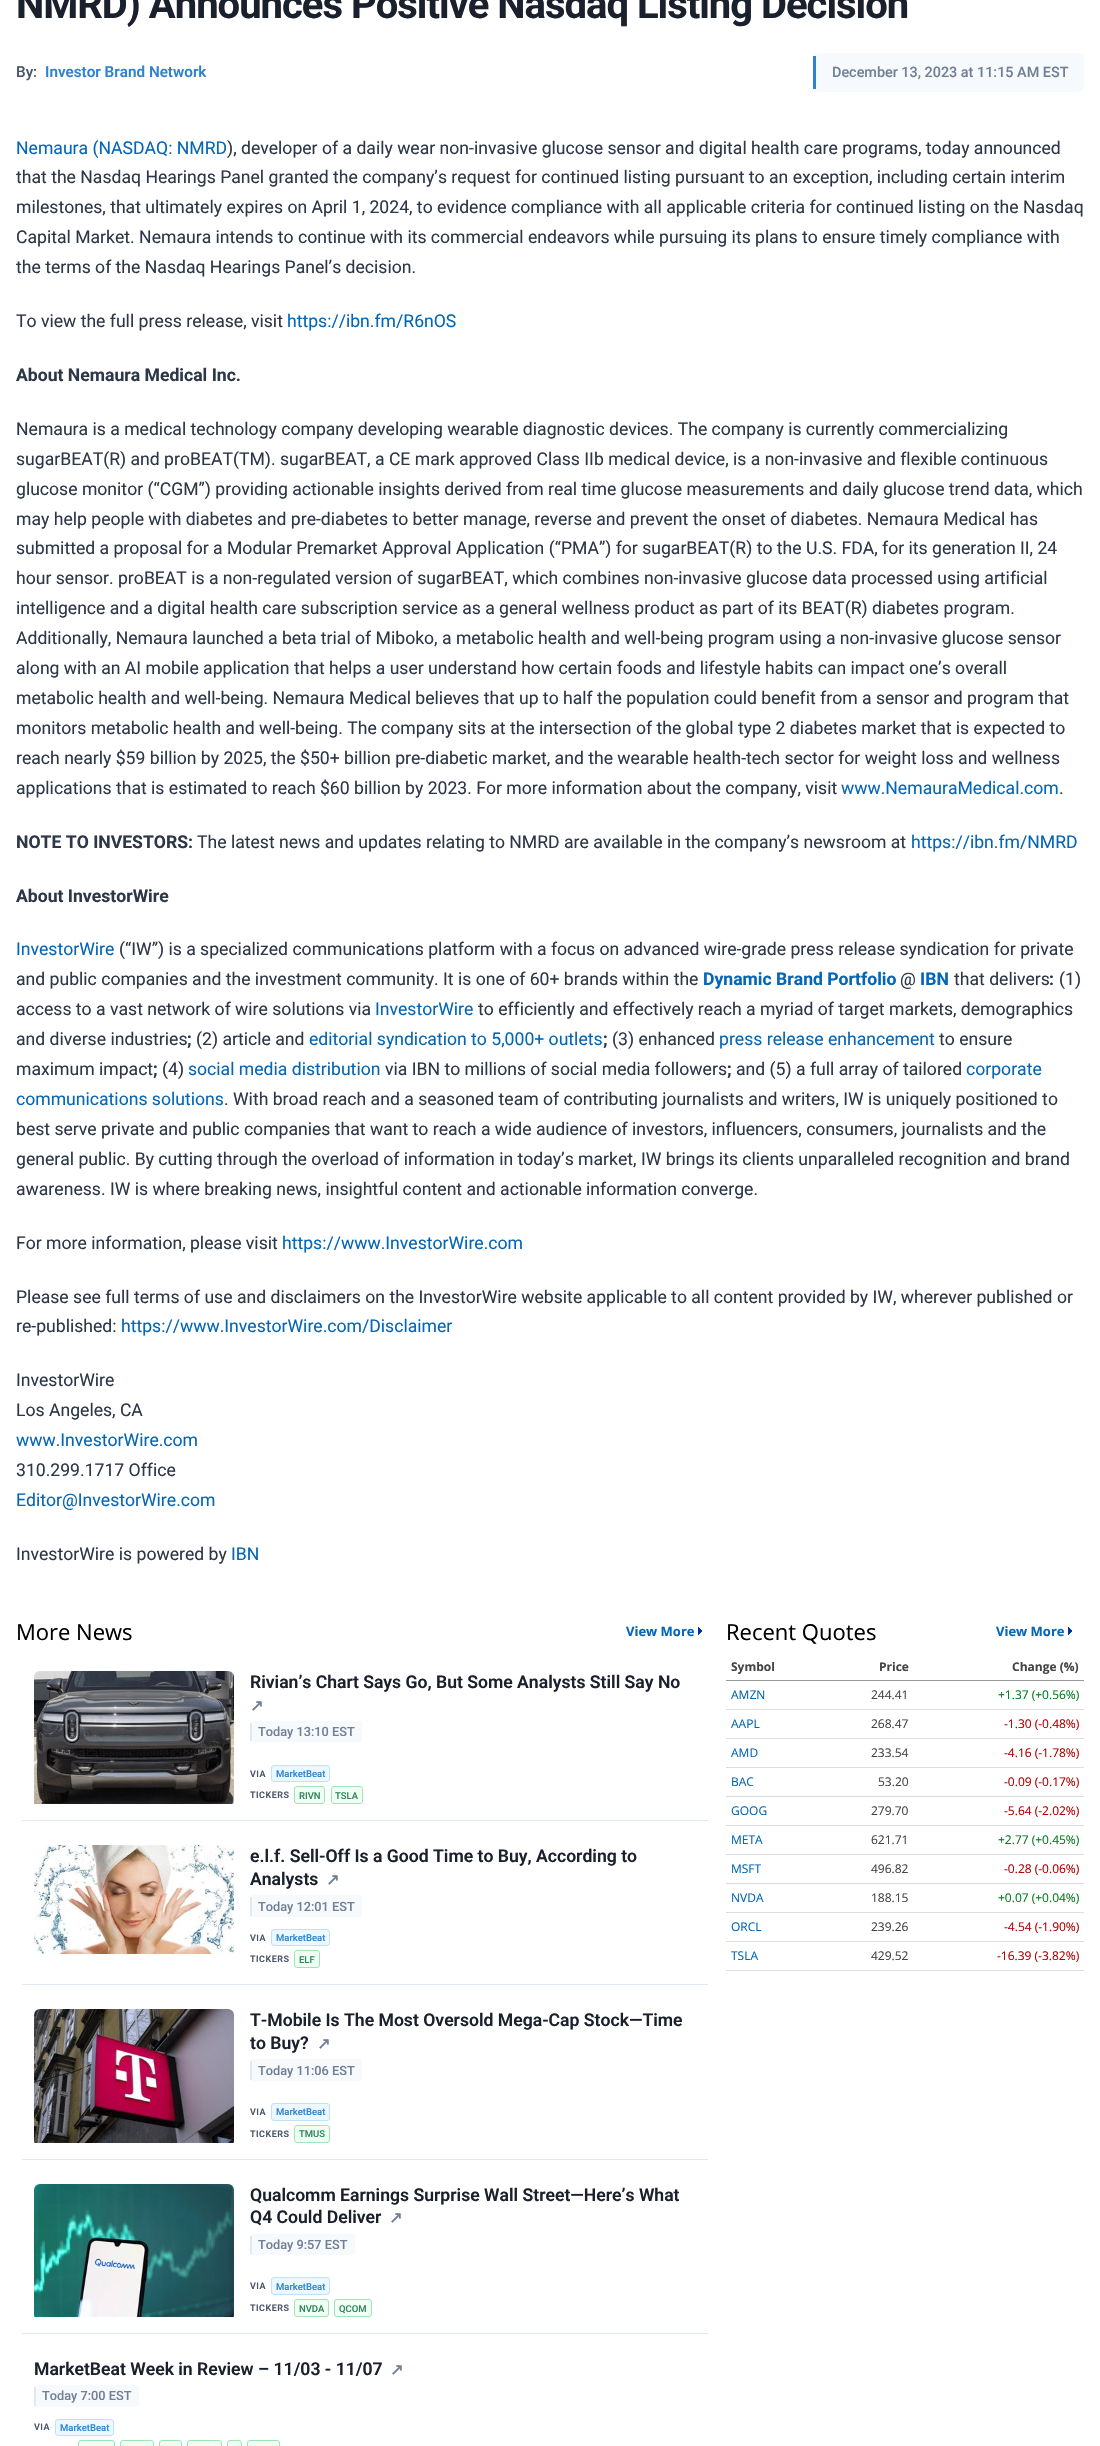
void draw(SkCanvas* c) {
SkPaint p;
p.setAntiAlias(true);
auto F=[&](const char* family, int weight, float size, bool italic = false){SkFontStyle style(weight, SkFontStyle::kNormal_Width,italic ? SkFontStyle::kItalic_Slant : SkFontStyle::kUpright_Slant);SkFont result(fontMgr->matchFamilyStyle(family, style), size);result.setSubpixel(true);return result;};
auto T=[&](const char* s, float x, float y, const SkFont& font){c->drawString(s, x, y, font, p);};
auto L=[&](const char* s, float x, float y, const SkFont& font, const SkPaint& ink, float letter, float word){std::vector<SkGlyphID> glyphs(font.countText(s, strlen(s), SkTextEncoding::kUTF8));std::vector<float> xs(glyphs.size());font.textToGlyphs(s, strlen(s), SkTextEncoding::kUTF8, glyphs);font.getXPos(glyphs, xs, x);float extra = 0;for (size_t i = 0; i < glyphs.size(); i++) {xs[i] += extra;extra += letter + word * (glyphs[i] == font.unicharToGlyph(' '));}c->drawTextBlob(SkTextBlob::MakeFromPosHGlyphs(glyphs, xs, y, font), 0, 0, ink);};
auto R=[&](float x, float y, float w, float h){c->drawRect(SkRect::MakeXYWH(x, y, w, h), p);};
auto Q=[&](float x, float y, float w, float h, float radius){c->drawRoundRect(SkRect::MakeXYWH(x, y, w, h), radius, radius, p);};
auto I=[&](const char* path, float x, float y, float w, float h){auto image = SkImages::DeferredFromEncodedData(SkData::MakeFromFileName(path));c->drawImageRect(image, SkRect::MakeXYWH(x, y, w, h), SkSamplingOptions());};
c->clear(0xffffffff);
auto f1 = F("Roboto",700,40);
p.setColor(0xff1a202c);
L("NMRD) Announces Positive Nasdaq Listing Decision",16,18,f1,p,-1,0);
auto f2 = F("Roboto",500,15.25);
p.setColor(0xff4a5568);
T("By:",16,77,f2);
auto f3 = F("Roboto",600,15.25);
p.setColor(0xff3182ce);
T("Investor Brand Network",45,77,f3);
p.setColor(0xfff7fafc);
Q(813,53,271,39,6);
p.setColor(0xff3182ce);
R(813,56,3,33);
auto f4 = F("Roboto",500,14.4);
p.setColor(0xff718096);
T("December 13, 2023 at 11:15 AM EST",832,77,f4);
auto f5 = F("Roboto",400,17.6);
p.setColor(0xff0466b6);
T("Nemaura (NASDAQ: NMRD",16,154,f5);
p.setColor(0xff2d3748);
T("), developer of a daily wear non-invasive glucose sensor and digital health care programs, today announced",227,154,f5);
T("that the Nasdaq Hearings Panel granted the company’s request for continued listing pursuant to an exception, including certain interim",16,183,f5);
T("milestones, that ultimately expires on April 1, 2024, to evidence compliance with all applicable criteria for continued listing on the Nasdaq",16,213,f5);
T("Capital Market. Nemaura intends to continue with its commercial endeavors while pursuing its plans to ensure timely compliance with",16,243,f5);
T("the terms of the Nasdaq Hearings Panel’s decision.",16,273,f5);
T("To view the full press release, visit",16,327,f5);
p.setColor(0xff0466b6);
T("https://ibn.fm/R6nOS",287,327,f5);
auto f6 = F("Roboto",700,17.6);
p.setColor(0xff2d3748);
T("About Nemaura Medical Inc.",16,381,f6);
T("Nemaura is a medical technology company developing wearable diagnostic devices. The company is currently commercializing",16,435,f5);
T("sugarBEAT(R) and proBEAT(TM). sugarBEAT, a CE mark approved Class IIb medical device, is a non-invasive and flexible continuous",16,465,f5);
T("glucose monitor (“CGM”) providing actionable insights derived from real time glucose measurements and daily glucose trend data, which",16,495,f5);
T("may help people with diabetes and pre-diabetes to better manage, reverse and prevent the onset of diabetes. Nemaura Medical has",16,525,f5);
T("submitted a proposal for a Modular Premarket Approval Application (“PMA”) for sugarBEAT(R) to the U.S. FDA, for its generation II, 24",16,554,f5);
T("hour sensor. proBEAT is a non-regulated version of sugarBEAT, which combines non-invasive glucose data processed using artificial",16,584,f5);
T("intelligence and a digital health care subscription service as a general wellness product as part of its BEAT(R) diabetes program.",16,614,f5);
T("Additionally, Nemaura launched a beta trial of Miboko, a metabolic health and well-being program using a non-invasive glucose sensor",16,644,f5);
T("along with an AI mobile application that helps a user understand how certain foods and lifestyle habits can impact one’s overall",16,674,f5);
T("metabolic health and well-being. Nemaura Medical believes that up to half the population could benefit from a sensor and program that",16,704,f5);
T("monitors metabolic health and well-being. The company sits at the intersection of the global type 2 diabetes market that is expected to",16,734,f5);
T("reach nearly $59 billion by 2025, the $50+ billion pre-diabetic market, and the wearable health-tech sector for weight loss and wellness",16,764,f5);
T("applications that is estimated to reach $60 billion by 2023. For more information about the company, visit",16,794,f5);
p.setColor(0xff0466b6);
T("www.NemauraMedical.com",841,794,f5);
p.setColor(0xff2d3748);
T(".",1059,794,f5);
T("NOTE TO INVESTORS:",16,848,f6);
T("The latest news and updates relating to NMRD are available in the company’s newsroom at",197,848,f5);
p.setColor(0xff0466b6);
T("https://ibn.fm/NMRD",911,848,f5);
p.setColor(0xff2d3748);
T("About InvestorWire",16,902,f6);
p.setColor(0xff0466b6);
T("InvestorWire",16,955,f5);
p.setColor(0xff2d3748);
T("(“IW”) is a specialized communications platform with a focus on advanced wire-grade press release syndication for private",119,955,f5);
T("and public companies and the investment community. It is one of 60+ brands within the",16,985,f5);
p.setColor(0xff0466b6);
T("Dynamic Brand Portfolio",703,985,f6);
p.setColor(0xff2d3748);
T("@",900,985,f5);
p.setColor(0xff0466b6);
T("IBN",920,985,f6);
p.setColor(0xff2d3748);
T("that delivers",954,985,f5);
T(":",1049,985,f6);
T("(1)",1059,985,f5);
T("access to a vast network of wire solutions via",16,1015,f5);
p.setColor(0xff0466b6);
T("InvestorWire",375,1015,f5);
p.setColor(0xff2d3748);
T("to efficiently and effectively reach a myriad of target markets, demographics",478,1015,f5);
T("and diverse industries",16,1045,f5);
T(";",187,1045,f6);
T("(2) article and",196,1045,f5);
p.setColor(0xff0466b6);
T("editorial syndication to 5,000+ outlets",309,1045,f5);
p.setColor(0xff2d3748);
T(";",603,1045,f6);
T("(3) enhanced",612,1045,f5);
p.setColor(0xff0466b6);
T("press release enhancement",719,1045,f5);
p.setColor(0xff2d3748);
T("to ensure",939,1045,f5);
T("maximum impact",16,1075,f5);
T(";",153,1075,f6);
T("(4)",162,1075,f5);
p.setColor(0xff0466b6);
T("social media distribution",188,1075,f5);
p.setColor(0xff2d3748);
T("via IBN to millions of social media followers",385,1075,f5);
T(";",727,1075,f6);
T("and (5) a full array of tailored",736,1075,f5);
p.setColor(0xff0466b6);
T("corporate",966,1075,f5);
T("communications solutions",16,1105,f5);
p.setColor(0xff2d3748);
T(". With broad reach and a seasoned team of contributing journalists and writers, IW is uniquely positioned to",224,1105,f5);
T("best serve private and public companies that want to reach a wide audience of investors, influencers, consumers, journalists and the",16,1135,f5);
T("general public. By cutting through the overload of information in today’s market, IW brings its clients unparalleled recognition and brand",16,1165,f5);
T("awareness. IW is where breaking news, insightful content and actionable information converge.",16,1195,f5);
T("For more information, please visit",16,1249,f5);
p.setColor(0xff0466b6);
T("https://www.InvestorWire.com",282,1249,f5);
p.setColor(0xff2d3748);
T("Please see full terms of use and disclaimers on the InvestorWire website applicable to all content provided by IW, wherever published or",16,1303,f5);
T("re-published:",16,1332,f5);
p.setColor(0xff0466b6);
T("https://www.InvestorWire.com/Disclaimer",121,1332,f5);
p.setColor(0xff2d3748);
T("InvestorWire",16,1386,f5);
T("Los Angeles, CA",16,1416,f5);
p.setColor(0xff0466b6);
T("www.InvestorWire.com",16,1446,f5);
p.setColor(0xff2d3748);
T("310.299.1717 Office",16,1476,f5);
p.setColor(0xff0466b6);
T("Editor@InvestorWire.com",16,1506,f5);
p.setColor(0xff2d3748);
T("InvestorWire is powered by",16,1560,f5);
p.setColor(0xff0466b6);
T("IBN",231,1560,f5);
auto f7 = F("Open Sans",400,22);
p.setColor(0xff000000);
T("More News",16,1640,f7);
I("1.png",698,1627,4,8);
auto f8 = F("Open Sans",700,13);
p.setColor(0xff0466b6);
T("View More",626,1636,f8);
p.setColor(0xffe2e8f0);
R(22,1820,686,1);
I("2.png",34,1671,200,133);
auto f9 = F("Roboto",600,17.6);
p.setColor(0xff1a202c);
T("Rivian’s Chart Says Go, But Some Analysts Still Say No",250,1688,f9);
auto f10 = F("DejaVu Sans",700,16);
p.setColor(0xff718096);
T("↗",250,1711,f10);
p.setColor(0xfff7fafc);
Q(250,1721,112,21,3);
p.setColor(0xffe2e8f0);
R(250,1723,2,18);
auto f11 = F("Roboto",500,12.75);
p.setColor(0xff718096);
T("Today 13:10 EST",258,1736,f11);
auto f12 = F("Roboto",600,9);
p.setColor(0xff4a5568);
L("VIA",250,1777,f12,p,.5,0);
p.setColor(0xffebf8ff);
c->drawRoundRect(SkRect::MakeXYWH(271.5,1765.5,58,16),2.5,2.5,p);
p.setStroke(true);
p.setStrokeWidth(1);
p.setColor(0xffbee3f8);
c->drawRoundRect(SkRect::MakeXYWH(271.5,1765.5,58,16),2.5,2.5,p);
auto f13 = F("Roboto",500,9.5);
p.setStroke(false);
p.setColor(0xff3182ce);
T("MarketBeat",276,1777,f13);
p.setColor(0xff4a5568);
L("TICKERS",250,1798,f12,p,.5,0);
p.setColor(0xfff0fff4);
c->drawRoundRect(SkRect::MakeXYWH(294.5,1786.5,30,17),2.5,2.5,p);
p.setStroke(true);
p.setColor(0xff9ae6b4);
c->drawRoundRect(SkRect::MakeXYWH(294.5,1786.5,30,17),2.5,2.5,p);
p.setStroke(false);
p.setColor(0xff2f855a);
T("RIVN",299,1799,f13);
p.setColor(0xfff0fff4);
c->drawRoundRect(SkRect::MakeXYWH(331.5,1786.5,31,17),2.5,2.5,p);
p.setStroke(true);
p.setColor(0xff9ae6b4);
c->drawRoundRect(SkRect::MakeXYWH(331.5,1786.5,31,17),2.5,2.5,p);
p.setStroke(false);
p.setColor(0xff2f855a);
T("TSLA",335,1799,f13);
p.setColor(0xffe2e8f0);
R(22,1984,686,1);
I("3.png",34,1845,200,109);
p.setColor(0xff1a202c);
T("e.l.f. Sell-Off Is a Good Time to Buy, According to",250,1862,f9);
T("Analysts",250,1885,f9);
p.setColor(0xff718096);
T("↗",326,1885,f10);
p.setColor(0xfff7fafc);
Q(250,1895,112,22,3);
p.setColor(0xffe2e8f0);
R(250,1897,2,19);
p.setColor(0xff718096);
T("Today 12:01 EST",258,1911,f11);
p.setColor(0xff4a5568);
L("VIA",250,1941,f12,p,.5,0);
p.setColor(0xffebf8ff);
c->drawRoundRect(SkRect::MakeXYWH(271.5,1929.5,58,16),2.5,2.5,p);
p.setStroke(true);
p.setColor(0xffbee3f8);
c->drawRoundRect(SkRect::MakeXYWH(271.5,1929.5,58,16),2.5,2.5,p);
p.setStroke(false);
p.setColor(0xff3182ce);
T("MarketBeat",276,1941,f13);
p.setColor(0xff4a5568);
L("TICKERS",250,1962,f12,p,.5,0);
p.setColor(0xfff0fff4);
c->drawRoundRect(SkRect::MakeXYWH(294.5,1950.5,25,17),2.5,2.5,p);
p.setStroke(true);
p.setColor(0xff9ae6b4);
c->drawRoundRect(SkRect::MakeXYWH(294.5,1950.5,25,17),2.5,2.5,p);
p.setStroke(false);
p.setColor(0xff2f855a);
T("ELF",299,1963,f13);
p.setColor(0xffe2e8f0);
R(22,2159,686,1);
I("4.png",34,2009,200,134);
p.setColor(0xff1a202c);
T("T-Mobile Is The Most Oversold Mega-Cap Stock—Time",250,2026,f9);
T("to Buy?",250,2049,f9);
p.setColor(0xff718096);
T("↗",317,2049,f10);
p.setColor(0xfff7fafc);
Q(250,2059,112,22,3);
p.setColor(0xffe2e8f0);
R(250,2061,2,19);
p.setColor(0xff718096);
T("Today 11:06 EST",258,2075,f11);
p.setColor(0xff4a5568);
L("VIA",250,2115,f12,p,.5,0);
p.setColor(0xffebf8ff);
c->drawRoundRect(SkRect::MakeXYWH(271.5,2103.5,58,17),2.5,2.5,p);
p.setStroke(true);
p.setColor(0xffbee3f8);
c->drawRoundRect(SkRect::MakeXYWH(271.5,2103.5,58,17),2.5,2.5,p);
p.setStroke(false);
p.setColor(0xff3182ce);
T("MarketBeat",276,2115,f13);
p.setColor(0xff4a5568);
L("TICKERS",250,2137,f12,p,.5,0);
p.setColor(0xfff0fff4);
c->drawRoundRect(SkRect::MakeXYWH(294.5,2125.5,35,17),2.5,2.5,p);
p.setStroke(true);
p.setColor(0xff9ae6b4);
c->drawRoundRect(SkRect::MakeXYWH(294.5,2125.5,35,17),2.5,2.5,p);
p.setStroke(false);
p.setColor(0xff2f855a);
T("TMUS",299,2137,f13);
p.setColor(0xffe2e8f0);
R(22,2333,686,1);
I("5.png",34,2184,200,133);
p.setColor(0xff1a202c);
T("Qualcomm Earnings Surprise Wall Street—Here’s What",250,2201,f9);
T("Q4 Could Deliver",250,2223,f9);
p.setColor(0xff718096);
T("↗",389,2223,f10);
p.setColor(0xfff7fafc);
Q(250,2234,105,21,3);
p.setColor(0xffe2e8f0);
R(250,2236,2,18);
p.setColor(0xff718096);
T("Today 9:57 EST",258,2249,f11);
p.setColor(0xff4a5568);
L("VIA",250,2289,f12,p,.5,0);
p.setColor(0xffebf8ff);
c->drawRoundRect(SkRect::MakeXYWH(271.5,2277.5,58,17),2.5,2.5,p);
p.setStroke(true);
p.setColor(0xffbee3f8);
c->drawRoundRect(SkRect::MakeXYWH(271.5,2277.5,58,17),2.5,2.5,p);
p.setStroke(false);
p.setColor(0xff3182ce);
T("MarketBeat",276,2290,f13);
p.setColor(0xff4a5568);
L("TICKERS",250,2311,f12,p,.5,0);
p.setColor(0xfff0fff4);
c->drawRoundRect(SkRect::MakeXYWH(294.5,2299.5,34,17),2.5,2.5,p);
p.setStroke(true);
p.setColor(0xff9ae6b4);
c->drawRoundRect(SkRect::MakeXYWH(294.5,2299.5,34,17),2.5,2.5,p);
p.setStroke(false);
p.setColor(0xff2f855a);
T("NVDA",299,2312,f13);
p.setColor(0xfff0fff4);
c->drawRoundRect(SkRect::MakeXYWH(334.5,2299.5,37,17),2.5,2.5,p);
p.setStroke(true);
p.setColor(0xff9ae6b4);
c->drawRoundRect(SkRect::MakeXYWH(334.5,2299.5,37,17),2.5,2.5,p);
p.setStroke(false);
p.setColor(0xff2f855a);
T("QCOM",339,2312,f13);
p.setColor(0xff1a202c);
T("MarketBeat Week in Review – 11/03 - 11/07",34,2375,f9);
p.setColor(0xff718096);
T("↗",390,2375,f10);
p.setColor(0xfff7fafc);
Q(34,2385,105,22,3);
p.setColor(0xffe2e8f0);
R(34,2387,2,19);
p.setColor(0xff718096);
T("Today 7:00 EST",42,2400,f11);
p.setColor(0xff4a5568);
L("VIA",34,2430,f12,p,.5,0);
p.setColor(0xffebf8ff);
c->drawRoundRect(SkRect::MakeXYWH(55.5,2419.5,58,16),2.5,2.5,p);
p.setStroke(true);
p.setColor(0xffbee3f8);
c->drawRoundRect(SkRect::MakeXYWH(55.5,2419.5,58,16),2.5,2.5,p);
p.setStroke(false);
p.setColor(0xff3182ce);
T("MarketBeat",60,2431,f13);
p.setColor(0xfff0fff4);
c->drawRoundRect(SkRect::MakeXYWH(78.5,2440.5,36,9),2.5,2.5,p);
p.setStroke(true);
p.setColor(0xff9ae6b4);
c->drawRoundRect(SkRect::MakeXYWH(78.5,2440.5,36,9),2.5,2.5,p);
p.setStroke(false);
p.setColor(0xfff0fff4);
c->drawRoundRect(SkRect::MakeXYWH(120.5,2440.5,33,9),2.5,2.5,p);
p.setStroke(true);
p.setColor(0xff9ae6b4);
c->drawRoundRect(SkRect::MakeXYWH(120.5,2440.5,33,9),2.5,2.5,p);
p.setStroke(false);
p.setColor(0xfff0fff4);
c->drawRoundRect(SkRect::MakeXYWH(159.5,2440.5,22,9),2.5,2.5,p);
p.setStroke(true);
p.setColor(0xff9ae6b4);
c->drawRoundRect(SkRect::MakeXYWH(159.5,2440.5,22,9),2.5,2.5,p);
p.setStroke(false);
p.setColor(0xfff0fff4);
c->drawRoundRect(SkRect::MakeXYWH(187.5,2440.5,34,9),2.5,2.5,p);
p.setStroke(true);
p.setColor(0xff9ae6b4);
c->drawRoundRect(SkRect::MakeXYWH(187.5,2440.5,34,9),2.5,2.5,p);
p.setStroke(false);
p.setColor(0xfff0fff4);
c->drawRoundRect(SkRect::MakeXYWH(227.5,2440.5,14,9),2.5,2.5,p);
p.setStroke(true);
p.setColor(0xff9ae6b4);
c->drawRoundRect(SkRect::MakeXYWH(227.5,2440.5,14,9),2.5,2.5,p);
p.setStroke(false);
p.setColor(0xfff0fff4);
c->drawRoundRect(SkRect::MakeXYWH(247.5,2440.5,32,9),2.5,2.5,p);
p.setStroke(true);
p.setColor(0xff9ae6b4);
c->drawRoundRect(SkRect::MakeXYWH(247.5,2440.5,32,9),2.5,2.5,p);
p.setStroke(false);
p.setColor(0xff000000);
T("Recent Quotes",726,1640,f7);
I("1.png",1068,1627,4,8);
p.setColor(0xff0466b6);
T("View More",996,1636,f8);
p.setColor(0xff999999);
R(726,1680,358,1);
auto f14 = F("Open Sans",700,12);
p.setColor(0xff444444);
T("Symbol",731,1671,f14);
T("Price",879,1671,f14);
T("Change (%)",1012,1671,f14);
p.setColor(0xffdddddd);
R(726,1709,358,1);
auto f15 = F("Open Sans",400,12);
p.setColor(0xff0466b6);
T("AMZN",731,1699,f15);
p.setColor(0xff444444);
T("244.41",871,1699,f15);
p.setColor(0xff007c1d);
T("+1.37 (+0.56%)",998,1699,f15);
p.setColor(0xffdddddd);
R(726,1738,358,1);
p.setColor(0xff0466b6);
T("AAPL",731,1728,f15);
p.setColor(0xff444444);
T("268.47",871,1728,f15);
p.setColor(0xffb50000);
T("-1.30 (-0.48%)",1004,1728,f15);
p.setColor(0xffdddddd);
R(726,1767,358,1);
p.setColor(0xff0466b6);
T("AMD",731,1757,f15);
p.setColor(0xff444444);
T("233.54",871,1757,f15);
p.setColor(0xffb50000);
T("-4.16 (-1.78%)",1004,1757,f15);
p.setColor(0xffdddddd);
R(726,1796,358,1);
p.setColor(0xff0466b6);
T("BAC",731,1786,f15);
p.setColor(0xff444444);
T("53.20",878,1786,f15);
p.setColor(0xffb50000);
T("-0.09 (-0.17%)",1004,1786,f15);
p.setColor(0xffdddddd);
R(726,1825,358,1);
p.setColor(0xff0466b6);
T("GOOG",731,1815,f15);
p.setColor(0xff444444);
T("279.70",871,1815,f15);
p.setColor(0xffb50000);
T("-5.64 (-2.02%)",1004,1815,f15);
p.setColor(0xffdddddd);
R(726,1854,358,1);
p.setColor(0xff0466b6);
T("META",731,1844,f15);
p.setColor(0xff444444);
T("621.71",871,1844,f15);
p.setColor(0xff007c1d);
T("+2.77 (+0.45%)",998,1844,f15);
p.setColor(0xffdddddd);
R(726,1883,358,1);
p.setColor(0xff0466b6);
T("MSFT",731,1873,f15);
p.setColor(0xff444444);
T("496.82",871,1873,f15);
p.setColor(0xffb50000);
T("-0.28 (-0.06%)",1004,1873,f15);
p.setColor(0xffdddddd);
R(726,1912,358,1);
p.setColor(0xff0466b6);
T("NVDA",731,1902,f15);
p.setColor(0xff444444);
T("188.15",871,1902,f15);
p.setColor(0xff007c1d);
T("+0.07 (+0.04%)",998,1902,f15);
p.setColor(0xffdddddd);
R(726,1941,358,1);
p.setColor(0xff0466b6);
T("ORCL",731,1931,f15);
p.setColor(0xff444444);
T("239.26",871,1931,f15);
p.setColor(0xffb50000);
T("-4.54 (-1.90%)",1004,1931,f15);
p.setColor(0xffdddddd);
R(726,1970,358,1);
p.setColor(0xff0466b6);
T("TSLA",731,1960,f15);
p.setColor(0xff444444);
T("429.52",871,1960,f15);
p.setColor(0xffb50000);
T("-16.39 (-3.82%)",997,1960,f15);
}
